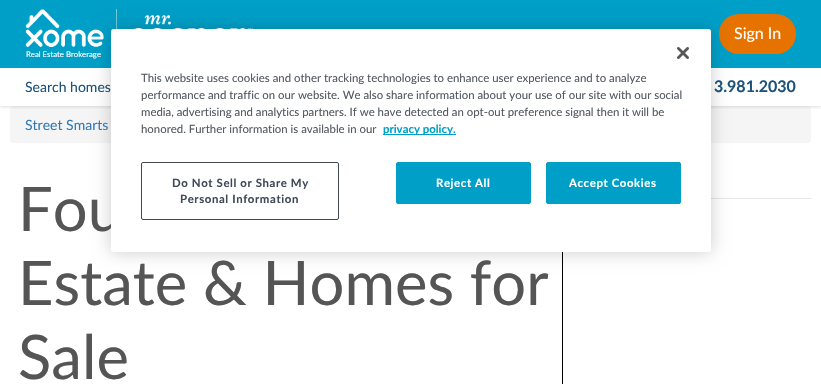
void draw(SkCanvas* c) {
SkPaint p;
p.setAntiAlias(true);
auto F=[&](const char* family, int weight, float size, bool italic = false){SkFontStyle style(weight, SkFontStyle::kNormal_Width,italic ? SkFontStyle::kItalic_Slant : SkFontStyle::kUpright_Slant);SkFont result(fontMgr->matchFamilyStyle(family, style), size);result.setSubpixel(true);return result;};
auto T=[&](const char* s, float x, float y, const SkFont& font){c->drawString(s, x, y, font, p);};
auto L=[&](const char* s, float x, float y, const SkFont& font, const SkPaint& ink, float letter, float word){std::vector<SkGlyphID> glyphs(font.countText(s, strlen(s), SkTextEncoding::kUTF8));std::vector<float> xs(glyphs.size());font.textToGlyphs(s, strlen(s), SkTextEncoding::kUTF8, glyphs);font.getXPos(glyphs, xs, x);float extra = 0;for (size_t i = 0; i < glyphs.size(); i++) {xs[i] += extra;extra += letter + word * (glyphs[i] == font.unicharToGlyph(' '));}c->drawTextBlob(SkTextBlob::MakeFromPosHGlyphs(glyphs, xs, y, font), 0, 0, ink);};
auto R=[&](float x, float y, float w, float h){c->drawRect(SkRect::MakeXYWH(x, y, w, h), p);};
auto Q=[&](float x, float y, float w, float h, float radius){c->drawRoundRect(SkRect::MakeXYWH(x, y, w, h), radius, radius, p);};
auto I=[&](const char* path, float x, float y, float w, float h){auto image = SkImages::DeferredFromEncodedData(SkData::MakeFromFileName(path));c->drawImageRect(image, SkRect::MakeXYWH(x, y, w, h), SkSamplingOptions());};
c->clear(0xffffffff);
p.setColor(0xfff5f5f5);
Q(10,106,801,37,4);
c->save();
c->clipRect(SkRect::MakeXYWH(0,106,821,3));
p.setColor(0x21000000);
p.setMaskFilter(SkMaskFilter::MakeBlur(kNormal_SkBlurStyle, 1.5));
c->drawRect(SkRect::MakeXYWH(0,69,821,38),p);
p.setMaskFilter(nullptr);
c->restore();
p.setColor(0xff009fc7);
R(0,0,821,68);
p.setColor(0xffe67300);
Q(719,14,77,40,20);
auto f1 = F("Lato",400,16);
p.setColor(0xffffffff);
T("Sign In",734,39,f1);
p.setColor(0xff70c9df);
R(116,9,1,20);
I("1.png",134,15,119,14);
I("2.png",25,9,79,38);
auto f2 = F("Lato",400,7.75);
p.setColor(0xffffffff);
T("Real Estate Brokerage",26,57,f2);
auto f3 = F("Lato",400,14);
p.setColor(0xff1d537b);
T("Search homes",25,92,f3);
auto f4 = F("Lato",700,16);
T("3.981.2030",714,92,f4);
p.setColor(0xff000000);
R(562,252,1,132);
p.setColor(0xffe6e6e6);
R(711,198,100,1);
p.setColor(0x33000000);
p.setMaskFilter(SkMaskFilter::MakeBlur(kNormal_SkBlurStyle, 9));
c->drawRoundRect(SkRect::MakeXYWH(111,29,600,223),2.5,2.5,p);
p.setMaskFilter(nullptr);
auto f5 = F("Lato",400,61.5);
p.setColor(0xff555555);
T("Fou",18,231,f5);
p.setColor(0xffffffff);
Q(111,29,600,223,2.5);
I("3.png",677,47,12,12);
auto f6 = F("Lato",400,11.4);
p.setColor(0xff535961);
T("This website uses cookies and other tracking technologies to enhance user experience and to analyze",141,82,f6);
T("performance and traffic on our website. We also share information about your use of our site with our social",141,99,f6);
T("media, advertising and analytics partners. If we have detected an opt-out preference signal then it will be",141,116,f6);
T("honored. Further information is available in our",141,133,f6);
p.setColor(0xff009fc7);
R(383,134,73,1);
auto f7 = F("Lato",700,11.4);
T("privacy policy.",383,133,f7);
p.setStroke(true);
p.setStrokeWidth(1);
p.setColor(0xff3f4a58);
c->drawRoundRect(SkRect::MakeXYWH(141.5,162.5,197,57),1.5,1.5,p);
p.setStroke(false);
L("Do Not Sell or Share My",172,187,f7,p,.6,0);
L("Personal Information",180,203,f7,p,.6,0);
p.setColor(0xff009fc7);
c->drawRoundRect(SkRect::MakeXYWH(396.5,162.5,134,41),1.5,1.5,p);
p.setStroke(true);
c->drawRoundRect(SkRect::MakeXYWH(396.5,162.5,134,41),1.5,1.5,p);
p.setStroke(false);
p.setColor(0xffffffff);
L("Reject All",436,187,f7,p,.6,0);
p.setColor(0xff009fc7);
c->drawRoundRect(SkRect::MakeXYWH(546.5,162.5,134,41),1.5,1.5,p);
p.setStroke(true);
c->drawRoundRect(SkRect::MakeXYWH(546.5,162.5,134,41),1.5,1.5,p);
p.setStroke(false);
p.setColor(0xffffffff);
L("Accept Cookies",569,187,f7,p,.6,0);
p.setColor(0xff337ab7);
T("Street Smarts",25,130,f3);
p.setColor(0xff555555);
T("Estate & Homes for",18,305,f5);
T("Sale",18,379,f5);
}
